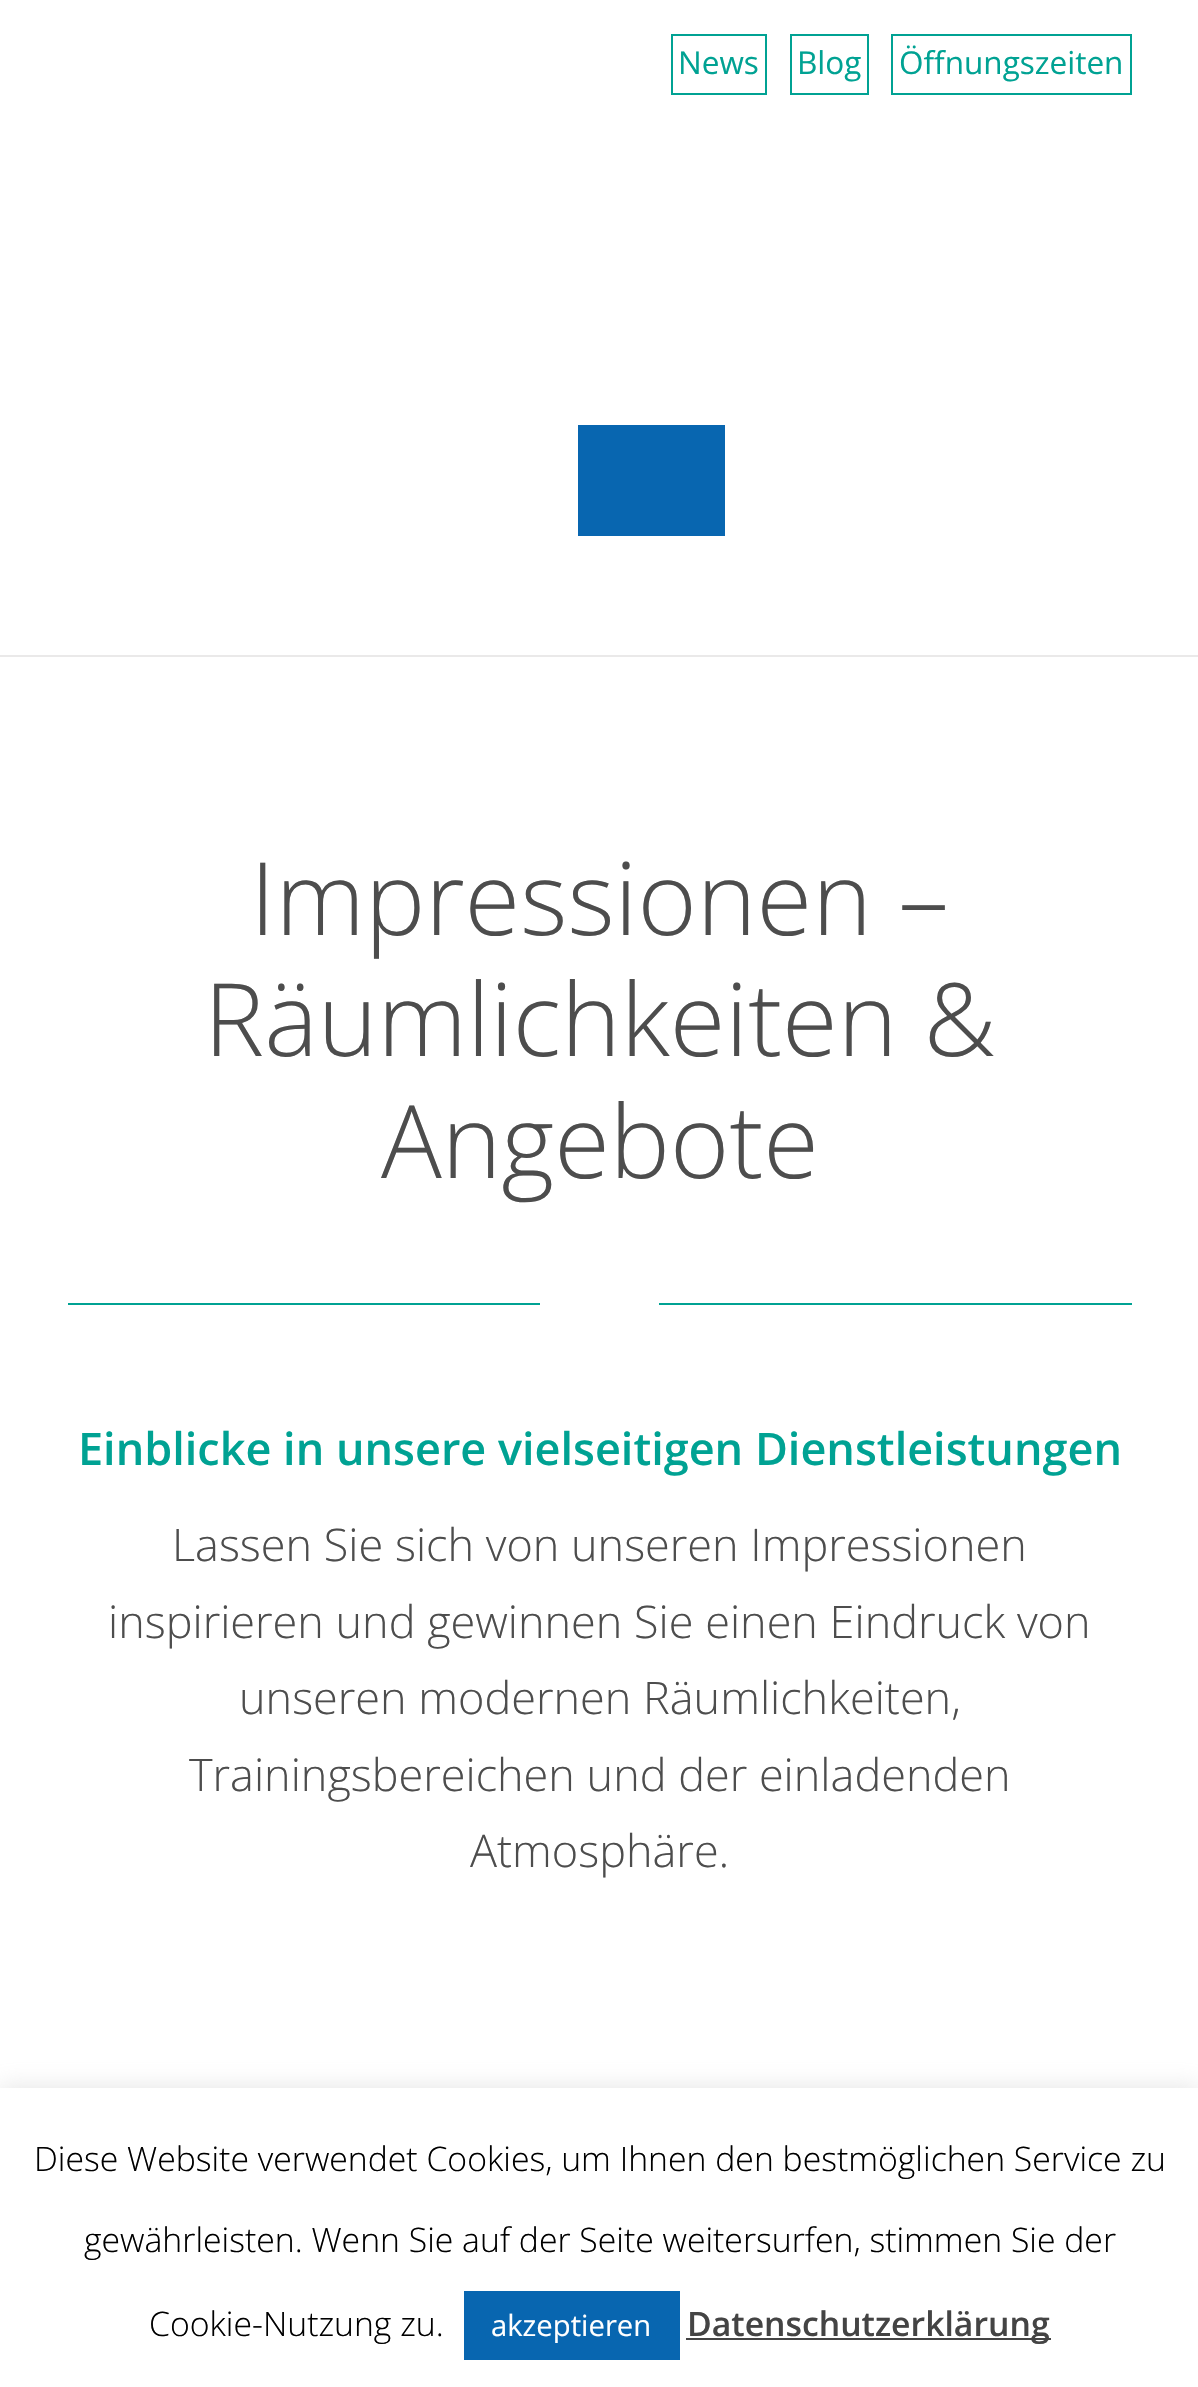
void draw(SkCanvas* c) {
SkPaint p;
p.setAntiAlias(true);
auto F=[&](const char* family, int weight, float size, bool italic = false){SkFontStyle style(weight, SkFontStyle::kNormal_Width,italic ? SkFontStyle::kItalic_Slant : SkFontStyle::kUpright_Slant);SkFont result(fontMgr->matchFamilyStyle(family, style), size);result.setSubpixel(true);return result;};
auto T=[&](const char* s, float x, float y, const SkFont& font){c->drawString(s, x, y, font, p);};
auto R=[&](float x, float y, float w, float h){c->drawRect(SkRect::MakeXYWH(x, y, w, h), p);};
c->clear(0xffffffff);
p.setStroke(true);
p.setStrokeWidth(2);
p.setColor(0xff00a293);
c->drawRect(SkRect::MakeXYWH(672,35,94,59),p);
auto f1 = F("Open Sans",400,31.5);
p.setStroke(false);
T("News",678,74,f1);
p.setStroke(true);
c->drawRect(SkRect::MakeXYWH(791,35,77,59),p);
p.setStroke(false);
T("Blog",797,74,f1);
p.setStroke(true);
c->drawRect(SkRect::MakeXYWH(892,35,239,59),p);
p.setStroke(false);
T("Öffnungszeiten",899,74,f1);
p.setColor(0xffeae9e9);
R(0,655,1198,2);
p.setColor(0xff0866b0);
R(578,425,147,111);
auto f2 = F("Open Sans",300,101.25);
p.setColor(0xff4d4d4d);
T("Impressionen –",250,935,f2);
T("Räumlichkeiten &",204,1056,f2);
T("Angebote",381,1178,f2);
p.setColor(0xff00a293);
R(68,1303,472,2);
R(659,1303,473,2);
auto f3 = F("Open Sans",600,45);
T("Einblicke in unsere vielseitigen Dienstleistungen",78,1465,f3);
auto f4 = F("Open Sans",300,45);
p.setColor(0xff4d4d4d);
T("Lassen Sie sich von unseren Impressionen",172,1561,f4);
T("inspirieren und gewinnen Sie einen Eindruck von",108,1638,f4);
T("unseren modernen Räumlichkeiten,",239,1714,f4);
T("Trainingsbereichen und der einladenden",189,1791,f4);
T("Atmosphäre.",470,1867,f4);
p.setColor(0x4dacabab);
p.setMaskFilter(SkMaskFilter::MakeBlur(kNormal_SkBlurStyle, 11));
c->drawRect(SkRect::MakeXYWH(0,2086,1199,299),p);
p.setMaskFilter(nullptr);
p.setColor(0xffffffff);
R(0,2088,1198,299);
auto f5 = F("Open Sans",300,33.75);
p.setColor(0xff000000);
T("Diese Website verwendet Cookies, um Ihnen den bestmöglichen Service zu",34,2171,f5);
T("gewährleisten. Wenn Sie auf der Seite weitersurfen, stimmen Sie der",84,2252,f5);
T("Cookie-Nutzung zu.",149,2336,f5);
p.setColor(0xff0866b0);
R(464,2291,216,69);
auto f6 = F("Open Sans",400,29.25);
p.setColor(0xffffffff);
T("akzeptieren",491,2336,f6);
p.setColor(0xff444444);
R(686,2338,365,2);
auto f7 = F("Open Sans",600,33.75);
T("Datenschutzerklärung",687,2336,f7);
}
